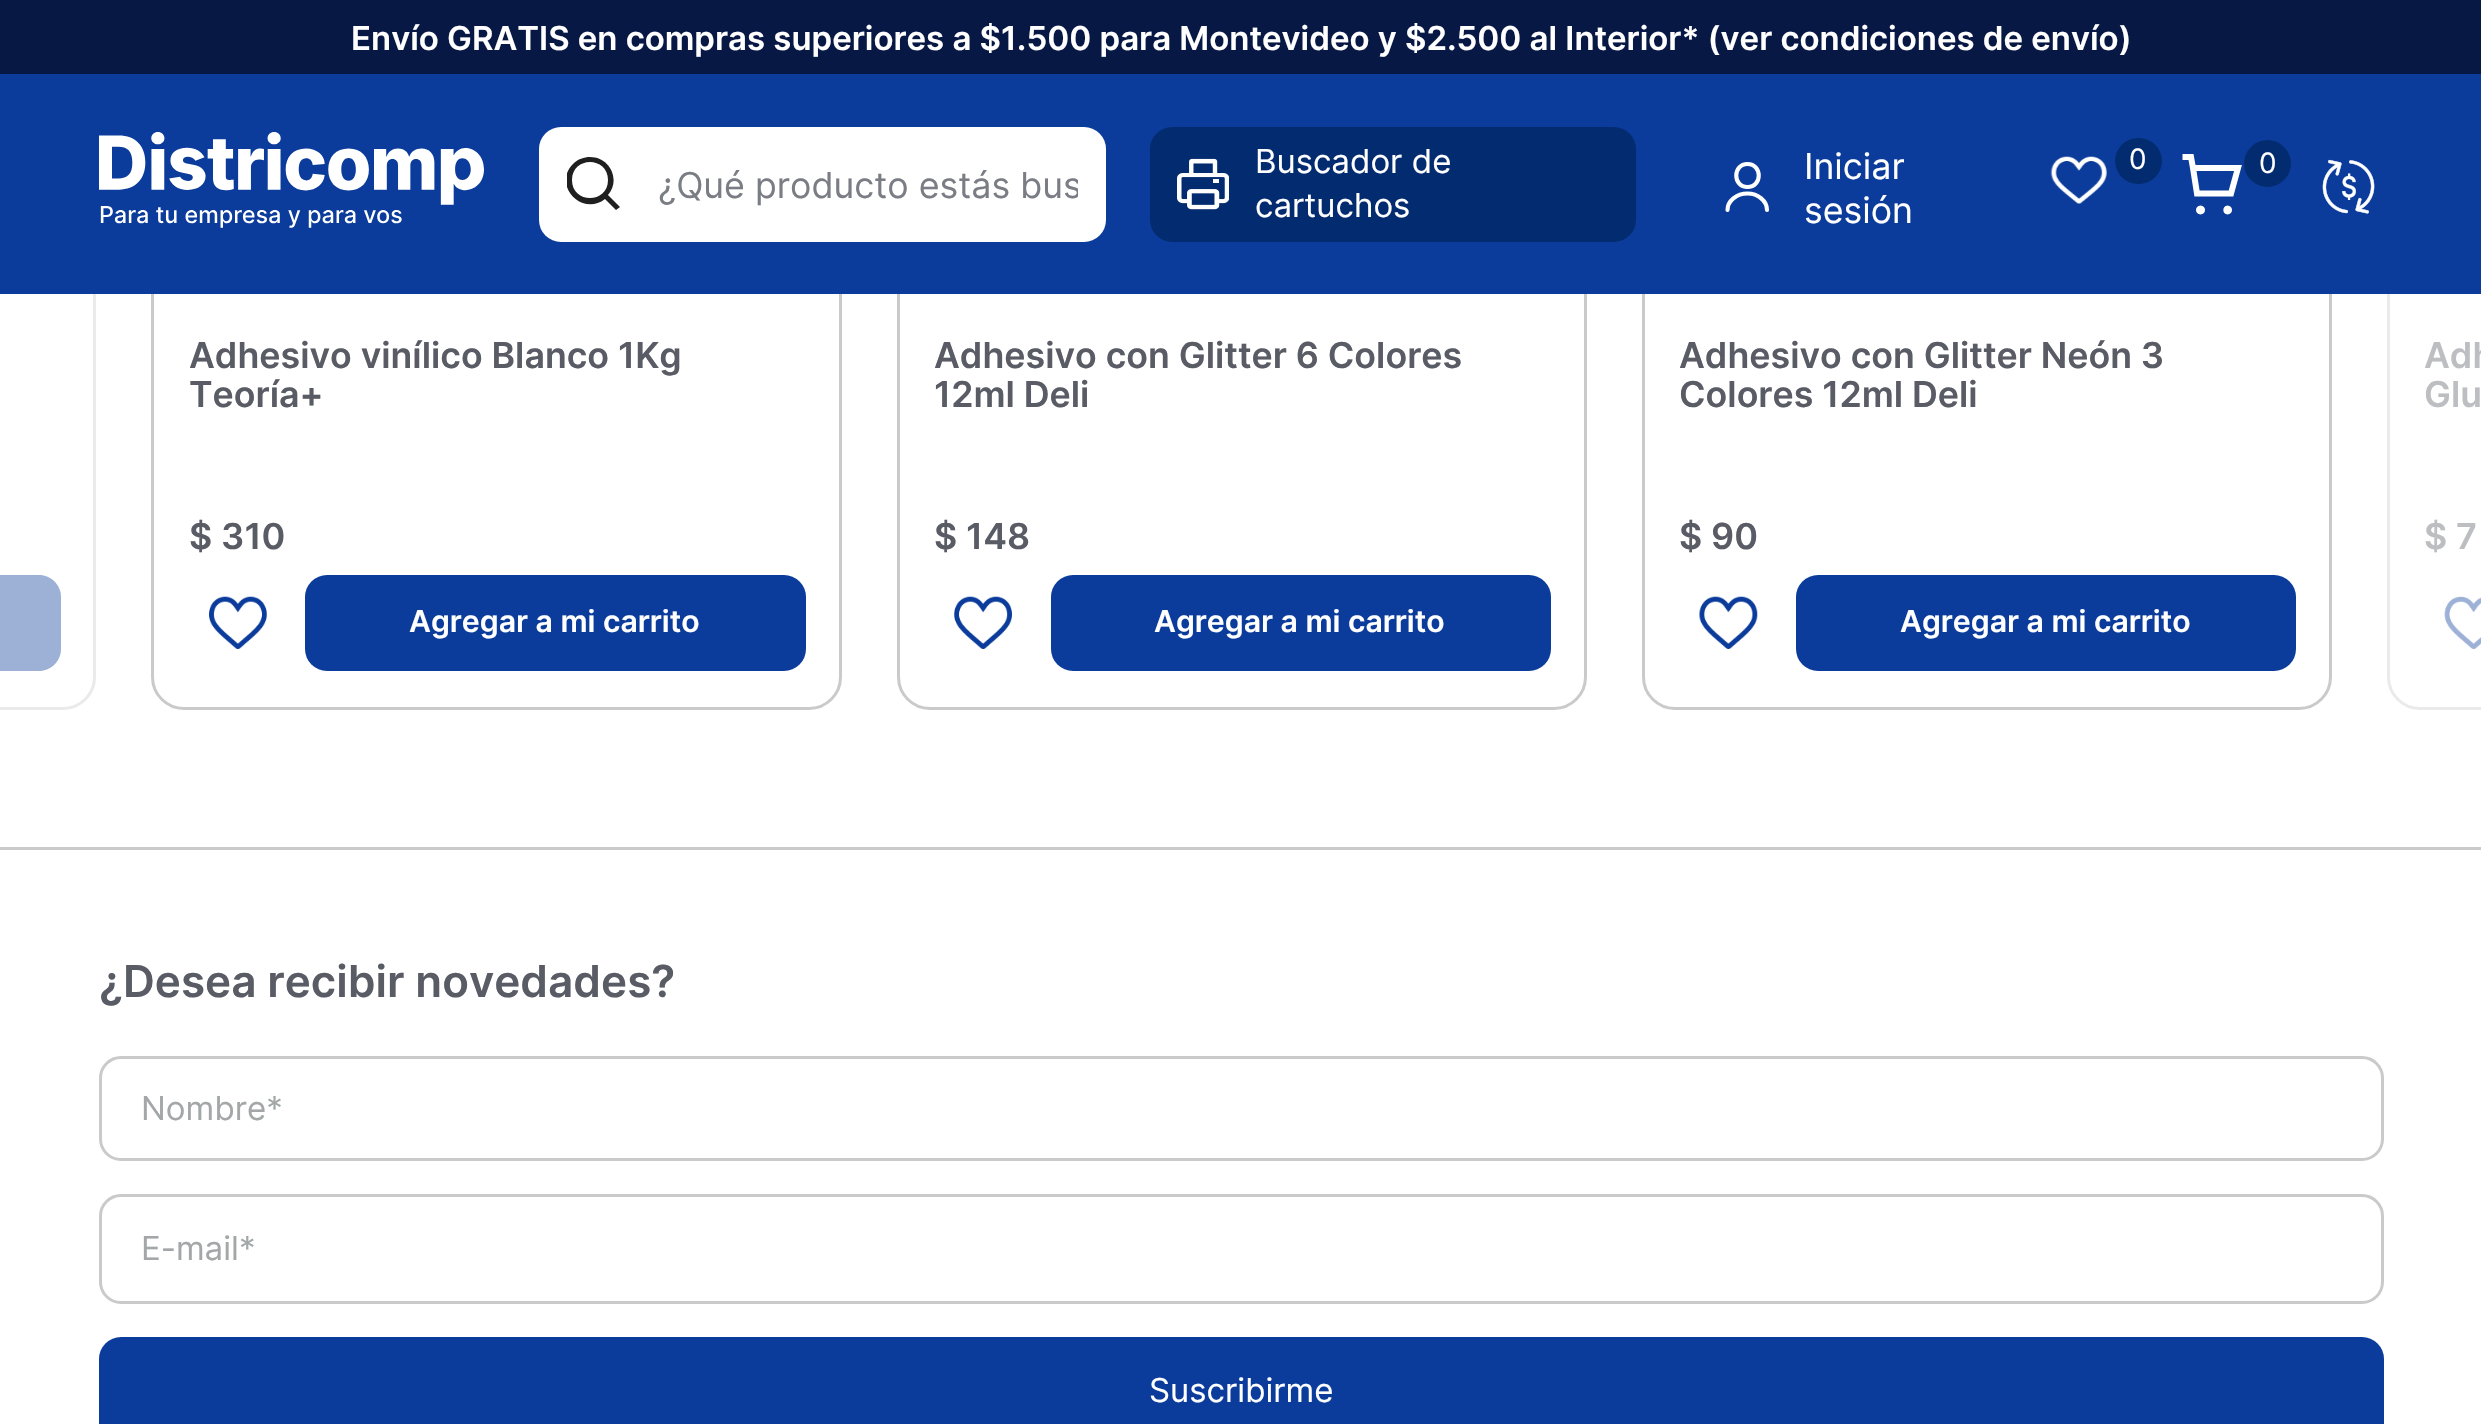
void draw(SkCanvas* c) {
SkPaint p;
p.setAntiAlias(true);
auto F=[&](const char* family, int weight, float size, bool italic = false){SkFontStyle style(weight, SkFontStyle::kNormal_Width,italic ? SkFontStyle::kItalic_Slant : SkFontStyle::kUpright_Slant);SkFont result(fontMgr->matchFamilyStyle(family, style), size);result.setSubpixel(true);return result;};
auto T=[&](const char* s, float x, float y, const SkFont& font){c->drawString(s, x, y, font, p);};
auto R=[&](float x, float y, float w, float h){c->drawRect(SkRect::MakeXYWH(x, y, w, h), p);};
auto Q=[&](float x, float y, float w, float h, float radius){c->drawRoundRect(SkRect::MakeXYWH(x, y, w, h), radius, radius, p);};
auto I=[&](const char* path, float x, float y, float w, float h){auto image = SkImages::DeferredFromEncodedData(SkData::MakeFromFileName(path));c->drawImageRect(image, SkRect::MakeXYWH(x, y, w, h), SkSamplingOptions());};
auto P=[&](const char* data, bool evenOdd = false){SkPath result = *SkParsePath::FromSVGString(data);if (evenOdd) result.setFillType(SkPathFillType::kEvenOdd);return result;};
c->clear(0xffffffff);
p.setStroke(true);
p.setStrokeWidth(3);
p.setColor(0xffeaeaea);
c->drawRoundRect(SkRect::MakeXYWH(-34.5,-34.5,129,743),31.5,31.5,p);
p.setColor(0xffcacaca);
c->drawRoundRect(SkRect::MakeXYWH(152.5,-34.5,688,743),31.5,31.5,p);
c->drawRoundRect(SkRect::MakeXYWH(898.5,-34.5,687,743),31.5,31.5,p);
c->drawRoundRect(SkRect::MakeXYWH(1643.5,-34.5,687,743),31.5,31.5,p);
p.setColor(0xffeaeaea);
c->drawRoundRect(SkRect::MakeXYWH(2388.5,-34.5,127,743),31.5,31.5,p);
p.setStroke(false);
p.setColor(0xff0b3c9b);
R(0,74,2481,220);
p.setColor(0xff071844);
R(0,0,2481,74);
auto f1 = F("Inter",600,33);
p.setColor(0xffffffff);
T("Envío GRATIS en compras superiores a $1.500 para Montevideo y $2.500 al Interior* (ver condiciones de envío)",351,50,f1);
I("1.png",99,132,385,96);
Q(539,127,567,115,22);
c->save();
c->clipRect(SkRect::MakeXYWH(567,157,55,55));
p.setColor(0xff1f1f1f);
c->drawPath(P("M590 157c20 0 31 23 18 38l12 12l-4 3l-11-11c-23 18-53-14-32-35c5-5 11-7 17-7zm-18 23c0-24 36-24 36 0c0 24-36 24-36 0z",true),p);
c->restore();
c->save();
c->clipRect(SkRect::MakeXYWH(657,162,421,44));
auto f2 = F("Inter",400,35.75);
p.setColor(0xff7a7d84);
T("¿Qué producto estás bus",658,198,f2);
c->restore();
p.setColor(0xff032b70);
Q(1150,127,486,115,22);
I("2.png",1177,158,52,52);
auto f3 = F("Inter",400,33);
p.setColor(0xffffffff);
T("Buscador de",1255,173,f3);
T("cartuchos",1255,217,f3);
p.setStroke(true);
p.setStrokeWidth(4.1);
p.setStrokeCap(SkPaint::kRound_Cap);
p.setStrokeJoin(SkPaint::kRound_Join);
c->drawPath(P("M1747.5 187c15 0 15-23 0-23c-15 0-15 23 0 23zm19.5 23c0-9-9-16.5-19.5-16.5c-11 0-20 7.5-20 16.5"),p);
p.setStroke(false);
T("Iniciar",1804,179,f2);
T("sesión",1804,223,f2);
I("3.png",2050,156,57,48);
p.setColor(0xff032b70);
Q(2115,138,47,46,23);
auto f4 = F("Inter",400,28);
p.setColor(0xffffffff);
T("0",2129,169,f4);
c->drawPath(P("M2200.5 205.5c6 0 6 9 0 9c-6 0-6-9 0-9zm27 0c6 0 6 9 0 9c-5.5 0-5.5-9 0-9z",true),p);
p.setStroke(true);
p.setStrokeWidth(6);
p.setStrokeCap(SkPaint::kButt_Cap);
p.setStrokeJoin(SkPaint::kMiter_Join);
c->drawPath(P("M2182.5 157h8.5l2 11m0 0l4 25.5h34l7-25.5z"),p);
p.setStroke(false);
p.setColor(0xff032b70);
c->drawCircle(2267.5,163.5,23.5,p);
p.setColor(0xffffffff);
T("0",2259,173,f4);
I("4.png",2322,159,53,55);
p.setColor(0xff9db1d7);
c->drawPath(P("M0 575h39c12 0 22 10 22 22v52c0 12-10 22-22 22h-39z"),p);
auto f5 = F("Inter",600,35.75);
p.setColor(0xff595c65);
T("Adhesivo vinílico Blanco 1Kg",189,368,f5);
T("Teoría+",189,407,f5);
T("$ 310",189,549,f5);
I("5.png",209,596,58,53);
p.setColor(0xff0b3c9b);
Q(305,575,501,96,22);
auto f6 = F("Inter",600,30.25);
p.setColor(0xffffffff);
T("Agregar a mi carrito",409,632,f6);
p.setColor(0xff595c65);
T("Adhesivo con Glitter 6 Colores",934,368,f5);
T("12ml Deli",934,407,f5);
T("$ 148",934,549,f5);
I("6.png",954,596,58,53);
p.setColor(0xff0b3c9b);
Q(1051,575,500,96,22);
p.setColor(0xffffffff);
T("Agregar a mi carrito",1154,632,f6);
p.setColor(0xff595c65);
T("Adhesivo con Glitter Neón 3",1679,368,f5);
T("Colores 12ml Deli",1679,407,f5);
T("$ 90",1679,549,f5);
I("7.png",1699,596,59,53);
p.setColor(0xff0b3c9b);
Q(1796,575,500,96,22);
p.setColor(0xffffffff);
T("Agregar a mi carrito",1900,632,f6);
p.setColor(0xffbdbec1);
T("Adh",2424,368,f5);
T("Glu",2424,407,f5);
T("$ 7",2424,549,f5);
I("8.png",2444,596,37,53);
p.setColor(0xffcacaca);
R(0,847,2481,3);
auto f7 = F("Inter",600,44);
p.setColor(0xff595c65);
T("¿Desea recibir novedades?",99,997,f7);
p.setStroke(true);
p.setStrokeWidth(3);
p.setColor(0xffcacaca);
c->drawRoundRect(SkRect::MakeXYWH(100.5,1057.5,2282,102),20.5,20.5,p);
p.setStroke(false);
p.setColor(0xffa3a7a8);
T("Nombre*",141,1120,f3);
p.setStroke(true);
p.setColor(0xffcacaca);
c->drawRoundRect(SkRect::MakeXYWH(100.5,1195.5,2282,107),20.5,20.5,p);
p.setStroke(false);
p.setColor(0xffa3a7a8);
T("E-mail*",141,1260,f3);
p.setColor(0xff0b3c9b);
Q(99,1337,2285,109,22);
p.setColor(0xffffffff);
T("Suscribirme",1149,1402,f3);
}
